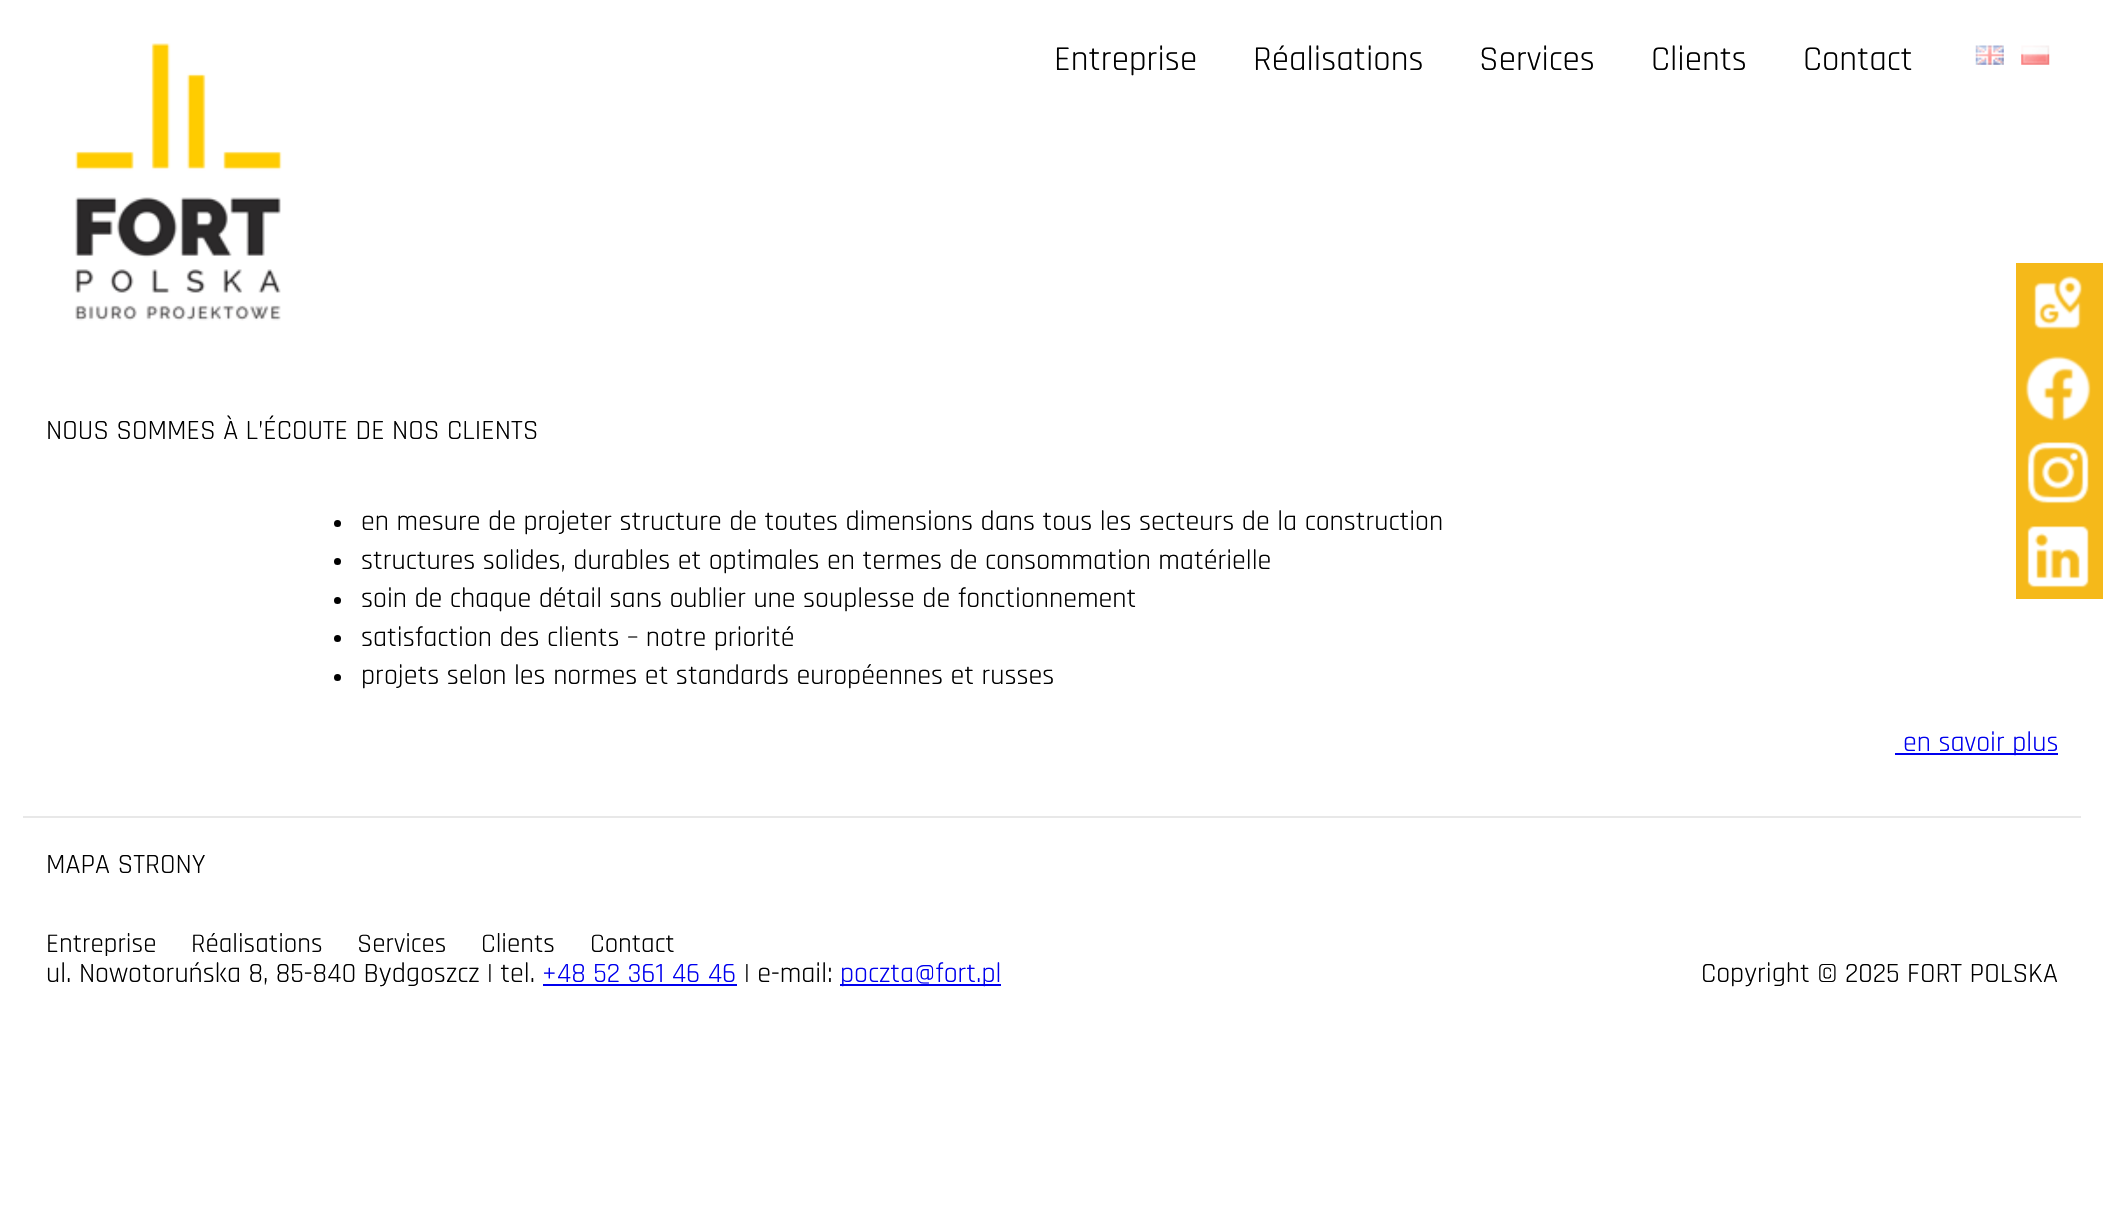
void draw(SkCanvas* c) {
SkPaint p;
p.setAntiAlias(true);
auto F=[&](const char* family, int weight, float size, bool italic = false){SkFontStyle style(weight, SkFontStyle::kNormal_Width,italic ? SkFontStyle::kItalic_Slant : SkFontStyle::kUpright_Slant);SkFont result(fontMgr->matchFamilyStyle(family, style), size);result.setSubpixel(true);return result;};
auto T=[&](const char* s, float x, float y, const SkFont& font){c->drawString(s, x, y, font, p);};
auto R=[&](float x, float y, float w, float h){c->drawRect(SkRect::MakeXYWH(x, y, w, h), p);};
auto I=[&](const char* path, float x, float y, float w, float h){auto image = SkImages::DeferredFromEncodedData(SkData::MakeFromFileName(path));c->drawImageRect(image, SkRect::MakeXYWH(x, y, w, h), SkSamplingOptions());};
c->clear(0xffffffff);
I("1.png",75,43,207,278);
auto f1 = F("Rajdhani",400,35);
p.setColor(0xff000000);
T("Entreprise",1054,70,f1);
T("Réalisations",1253,70,f1);
T("Services",1479,70,f1);
T("Clients",1651,70,f1);
T("Contact",1803,70,f1);
I("2.png",1975,45,29,20);
I("3.png",2021,45,29,20);
auto f2 = F("Rajdhani",400,28);
T("NOUS SOMMES À L’ÉCOUTE DE NOS CLIENTS",46,439,f2);
c->drawCircle(337.5,523.5,3.5,p);
T("en mesure de projeter structure de toutes dimensions dans tous les secteurs de la construction",361,530,f2);
c->drawCircle(337.5,561.5,3.5,p);
T("structures solides, durables et optimales en termes de consommation matérielle",361,569,f2);
c->drawCircle(337.5,600.5,3.5,p);
T("soin de chaque détail sans oublier une souplesse de fonctionnement",361,607,f2);
c->drawCircle(337.5,638.5,3.5,p);
T("satisfaction des clients – notre priorité",361,646,f2);
c->drawCircle(337.5,677.5,3.5,p);
T("projets selon les normes et standards européennes et russes",361,684,f2);
p.setColor(0xff0000ee);
R(1895,753,163,2);
T("en savoir plus",1903,751,f2);
p.setColor(0xfff5b91a);
R(2016,263,87,336);
I("4.png",2033,276,50,54);
I("5.png",2025,356,66,65);
I("6.png",2027,442,62,62);
I("7.png",2027,526,62,62);
p.setColor(0xffe8e8e8);
R(23,816,2058,2);
p.setColor(0xff000000);
T("MAPA STRONY",46,873,f2);
auto f3 = F("Rajdhani",400,27);
T("Entreprise",46,952,f3);
T("Réalisations",191,952,f3);
T("Services",357,952,f3);
T("Clients",481,952,f3);
T("Contact",590,952,f3);
T("ul. Nowotoruńska 8, 85-840 Bydgoszcz | tel.",46,982,f2);
p.setColor(0xff0000ee);
T("+48 52 361 46 46",542,982,f2);
R(543,984,194,2);
p.setColor(0xff000000);
T("| e-mail:",744,982,f2);
p.setColor(0xff0000ee);
R(840,984,161,2);
T("poczta@fort.pl",840,982,f2);
p.setColor(0xff000000);
T("Copyright © 2025 FORT POLSKA",1701,982,f2);
}
